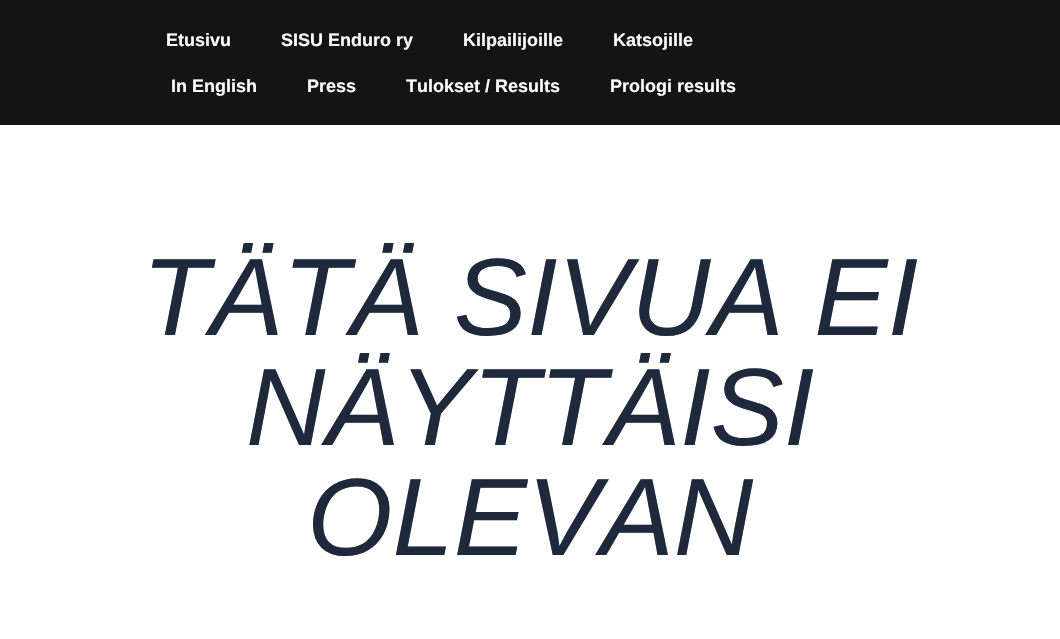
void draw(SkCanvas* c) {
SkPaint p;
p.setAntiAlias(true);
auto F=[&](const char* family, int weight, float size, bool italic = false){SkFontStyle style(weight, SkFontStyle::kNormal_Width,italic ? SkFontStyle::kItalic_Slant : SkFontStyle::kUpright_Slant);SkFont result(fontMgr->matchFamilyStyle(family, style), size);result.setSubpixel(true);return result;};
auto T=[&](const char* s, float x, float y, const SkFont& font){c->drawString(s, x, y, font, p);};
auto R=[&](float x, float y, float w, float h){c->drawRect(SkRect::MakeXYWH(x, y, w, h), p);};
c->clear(0xffffffff);
p.setColor(0xff141414);
R(0,0,1060,125);
auto f1 = F("Liberation Sans",700,18);
p.setColor(0xffffffff);
T("Etusivu",166,46,f1);
T("SISU Enduro ry",281,46,f1);
T("Kilpailijoille",463,46,f1);
T("Katsojille",613,46,f1);
T("In English",171,92,f1);
T("Press",307,92,f1);
T("Tulokset / Results",406,92,f1);
T("Prologi results",610,92,f1);
auto f2 = F("Liberation Sans",400,110,true);
p.setColor(0xff1e293b);
T("TÄTÄ SIVUA EI",142,335,f2);
T("NÄYTTÄISI",246,445,f2);
T("OLEVAN",307,555,f2);
}
